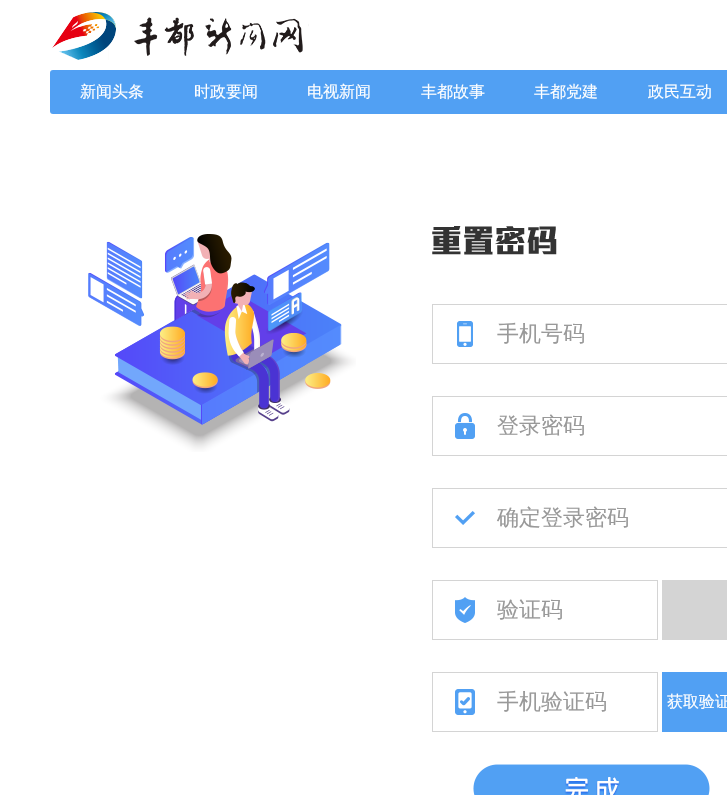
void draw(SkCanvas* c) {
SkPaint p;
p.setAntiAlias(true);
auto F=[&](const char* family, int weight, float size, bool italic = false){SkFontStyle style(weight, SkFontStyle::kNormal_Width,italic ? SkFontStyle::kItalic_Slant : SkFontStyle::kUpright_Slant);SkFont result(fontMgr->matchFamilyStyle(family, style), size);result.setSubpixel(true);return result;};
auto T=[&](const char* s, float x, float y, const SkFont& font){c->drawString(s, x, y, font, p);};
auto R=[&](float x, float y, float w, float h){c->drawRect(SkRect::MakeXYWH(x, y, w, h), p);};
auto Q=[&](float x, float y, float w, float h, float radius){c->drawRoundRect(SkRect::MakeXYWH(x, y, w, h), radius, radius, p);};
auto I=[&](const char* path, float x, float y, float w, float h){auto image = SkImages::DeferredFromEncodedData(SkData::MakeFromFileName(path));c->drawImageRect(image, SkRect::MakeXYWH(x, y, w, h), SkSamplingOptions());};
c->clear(0xffffffff);
I("1.png",52,12,257,48);
p.setColor(0xff51a0f3);
Q(50,70,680,44,3);
auto f1 = F("WenQuanYi Zen Hei",500,16);
p.setColor(0xffffffff);
T("新闻头条",80,97,f1);
T("时政要闻",194,97,f1);
T("电视新闻",307,97,f1);
T("丰都故事",421,97,f1);
T("丰都党建",534,97,f1);
T("政民互动",648,97,f1);
I("2.png",88,234,268,218);
I("3.png",432,226,125,29);
p.setStroke(true);
p.setStrokeWidth(1);
p.setColor(0xffd4d4d4);
c->drawRect(SkRect::MakeXYWH(432.5,304.5,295,59),p);
I("4.png",457,321,16,26);
auto f2 = F("WenQuanYi Zen Hei",500,22);
p.setStroke(false);
p.setColor(0xff999999);
T("手机号码",497,341,f2);
p.setStroke(true);
p.setColor(0xffd4d4d4);
c->drawRect(SkRect::MakeXYWH(432.5,396.5,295,59),p);
I("5.png",455,413,20,26);
p.setStroke(false);
p.setColor(0xff999999);
T("登录密码",497,433,f2);
p.setStroke(true);
p.setColor(0xffd4d4d4);
c->drawRect(SkRect::MakeXYWH(432.5,488.5,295,59),p);
I("6.png",455,511,20,14);
p.setStroke(false);
p.setColor(0xff999999);
T("确定登录密码",497,525,f2);
p.setStroke(true);
p.setColor(0xffd4d4d4);
c->drawRect(SkRect::MakeXYWH(432.5,580.5,225,59),p);
I("7.png",455,597,20,26);
p.setStroke(false);
p.setColor(0xff999999);
T("验证码",497,617,f2);
p.setColor(0xffd4d4d4);
R(662,580,65,60);
p.setStroke(true);
c->drawRect(SkRect::MakeXYWH(432.5,672.5,225,59),p);
I("8.png",455,689,20,26);
p.setStroke(false);
p.setColor(0xff999999);
T("手机验证码",497,709,f2);
p.setColor(0xff51a0f3);
R(662,672,65,60);
p.setColor(0xffffffff);
T("获取验证",667,707,f1);
I("9.png",473,764,237,31);
}
